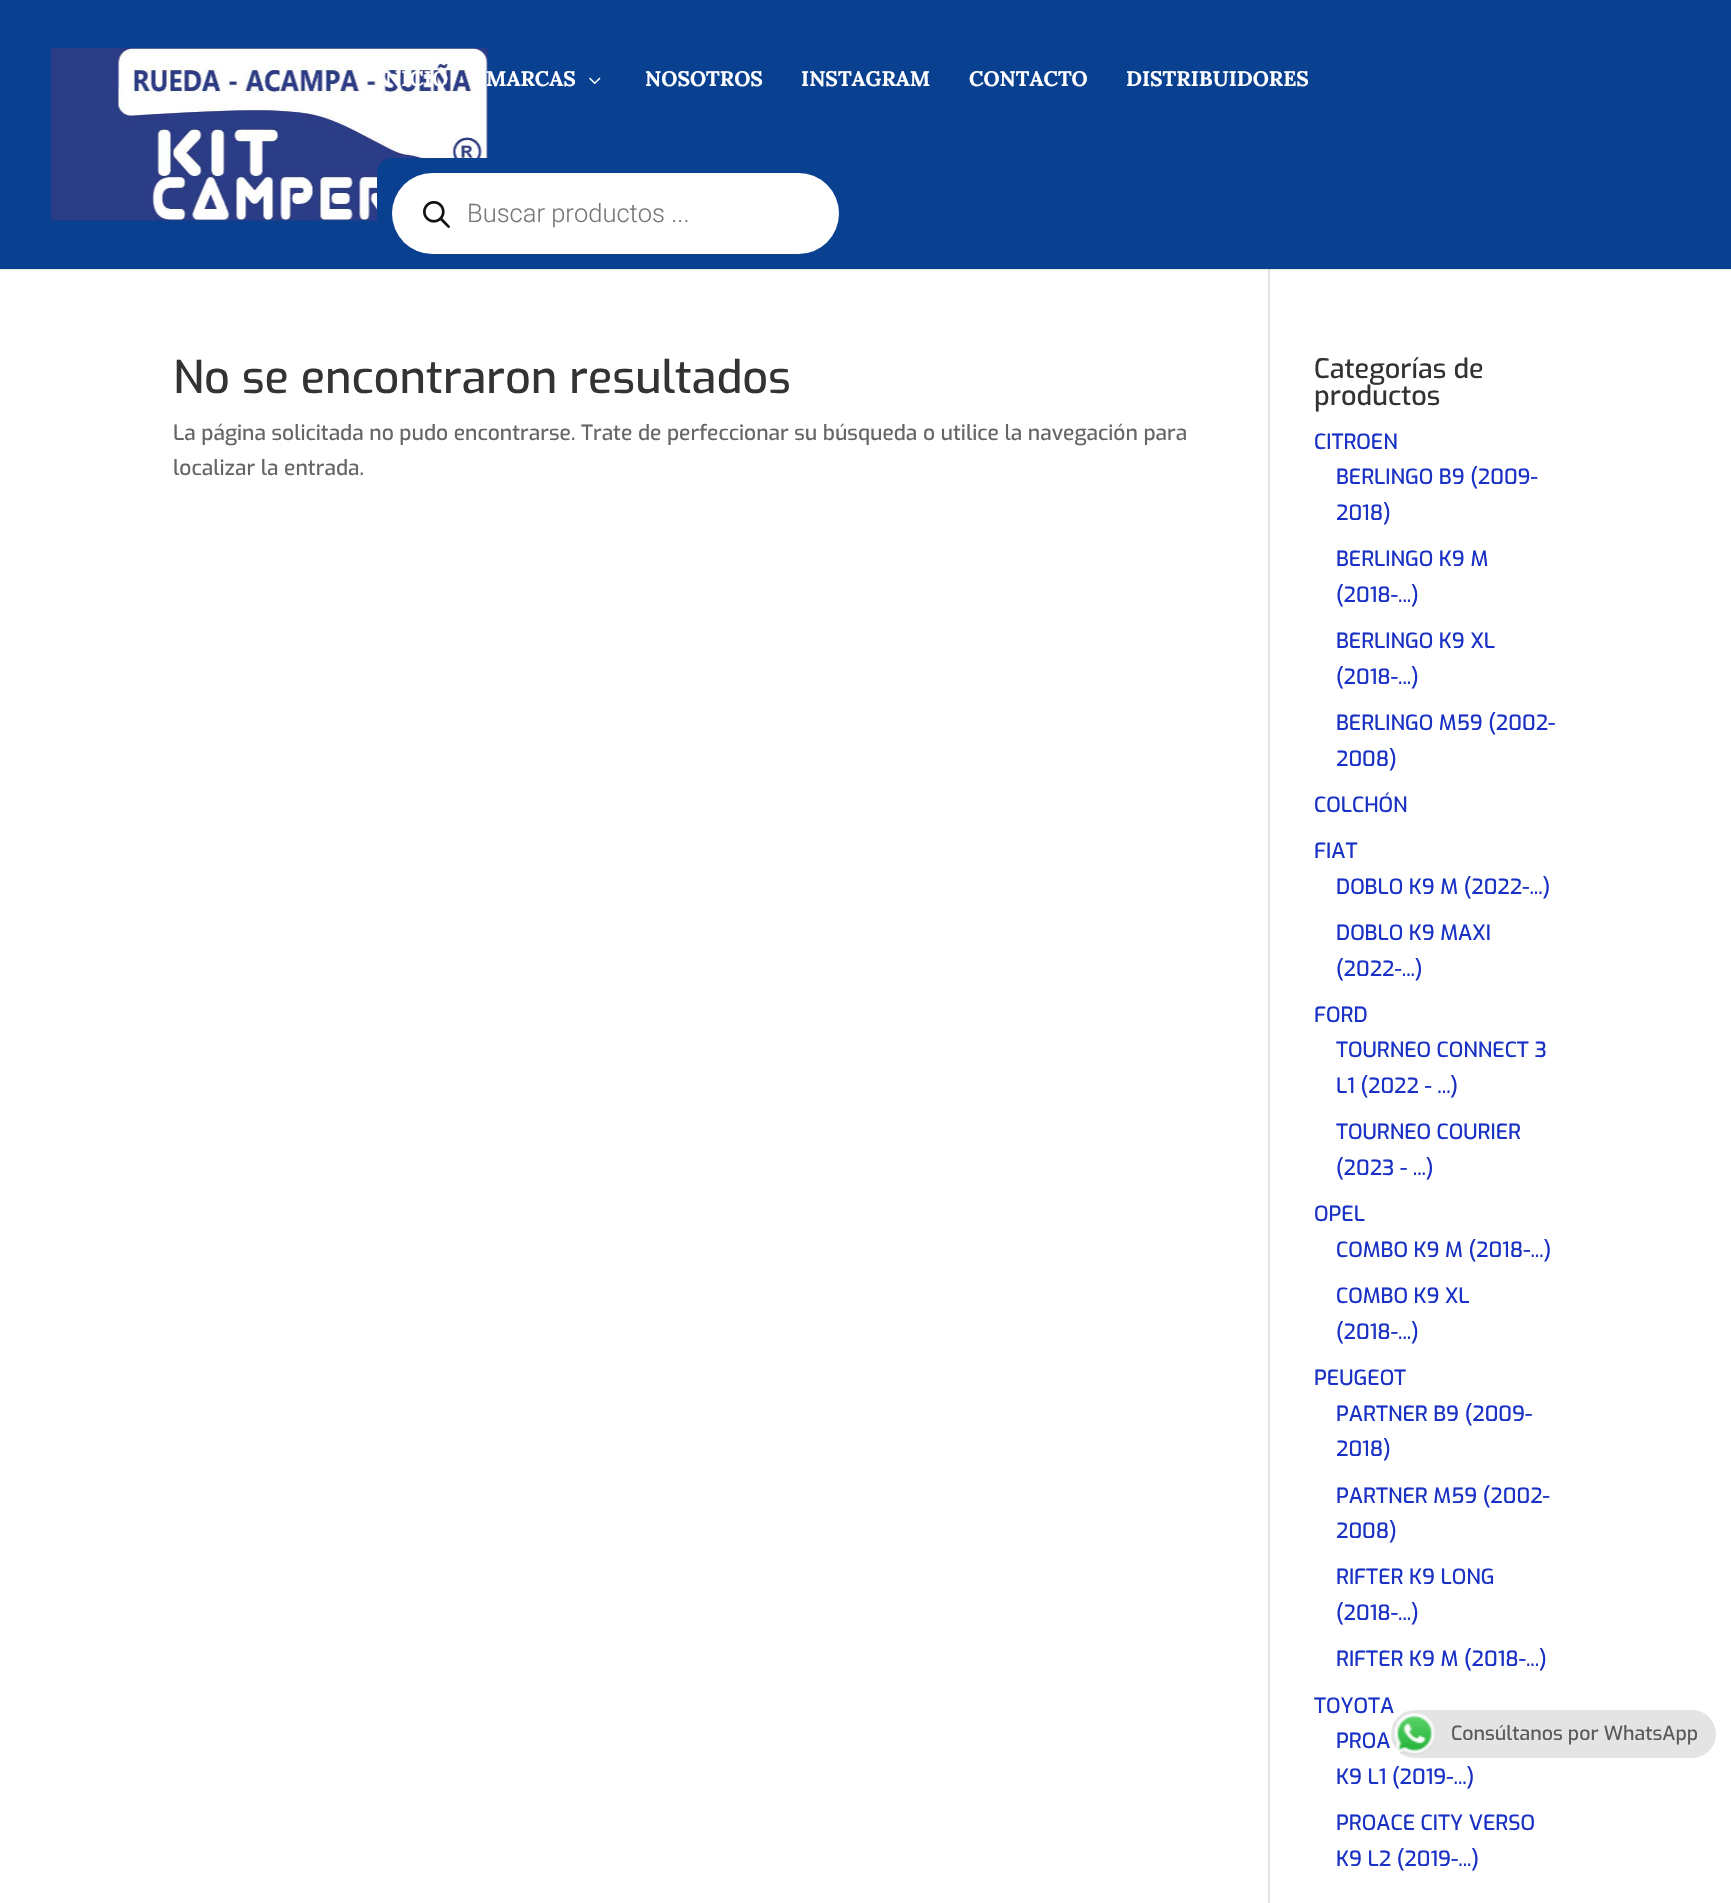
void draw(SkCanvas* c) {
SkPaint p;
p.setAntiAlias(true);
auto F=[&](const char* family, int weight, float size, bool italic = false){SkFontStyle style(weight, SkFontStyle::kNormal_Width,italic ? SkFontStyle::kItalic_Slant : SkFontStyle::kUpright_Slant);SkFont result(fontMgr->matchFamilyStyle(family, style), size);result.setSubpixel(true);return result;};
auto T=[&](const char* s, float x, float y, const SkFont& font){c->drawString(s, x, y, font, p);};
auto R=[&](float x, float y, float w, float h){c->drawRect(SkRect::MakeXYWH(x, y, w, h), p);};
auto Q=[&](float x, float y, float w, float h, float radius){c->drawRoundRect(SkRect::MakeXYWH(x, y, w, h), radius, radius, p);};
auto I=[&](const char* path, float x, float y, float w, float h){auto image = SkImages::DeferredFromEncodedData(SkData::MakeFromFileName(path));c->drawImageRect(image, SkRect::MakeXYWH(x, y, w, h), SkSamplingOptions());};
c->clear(0xffffffff);
p.setColor(0xffe6e6e6);
R(0,269,1731,1);
p.setColor(0xff094090);
R(0,0,1731,269);
I("1.png",50,48,438,173);
auto f1 = F("Lora",700,21);
p.setColor(0xffffffff);
T("NICIO",385,86,f1);
T("MARCAS",486,86,f1);
I("2.png",589,77,12,7);
T("NOSOTROS",645,86,f1);
T("INSTAGRAM",801,86,f1);
T("CONTACTO",969,86,f1);
T("DISTRIBUIDORES",1126,86,f1);
p.setColor(0xff094090);
Q(377,158,477,111,15);
p.setColor(0xffffffff);
Q(392,173,447,81,40.5);
I("3.png",423,201,27,27);
auto f2 = F("Roboto",300,25.5);
p.setColor(0xff777777);
T("Buscar productos ...",467,222,f2);
p.setColor(0xffe2e2e2);
R(1268,269,2,1634);
p.setColor(0xffcbcbcb);
R(1268,269,2,1);
auto f3 = F("Exo",500,45);
p.setColor(0xff333333);
T("No se encontraron resultados",173,393,f3);
auto f4 = F("Exo",500,21);
p.setColor(0xff666666);
T("La página solicitada no pudo encontrarse. Trate de perfeccionar su búsqueda o utilice la navegación para",173,440,f4);
T("localizar la entrada.",173,475,f4);
auto f5 = F("Exo",500,27);
p.setColor(0xff333333);
T("Categorías de",1314,378,f5);
T("productos",1314,405,f5);
p.setColor(0xff1931c4);
T("CITROEN",1314,449,f4);
T("BERLINGO B9 (2009-",1336,484,f4);
T("2018)",1336,520,f4);
T("BERLINGO K9 M",1336,566,f4);
T("(2018-...)",1336,602,f4);
T("BERLINGO K9 XL",1336,648,f4);
T("(2018-...)",1336,684,f4);
T("BERLINGO M59 (2002-",1336,730,f4);
T("2008)",1336,766,f4);
T("COLCHÓN",1314,812,f4);
T("FIAT",1314,858,f4);
T("DOBLO K9 M (2022-...)",1336,894,f4);
T("DOBLO K9 MAXI",1336,940,f4);
T("(2022-...)",1336,976,f4);
T("FORD",1314,1022,f4);
T("TOURNEO CONNECT 3",1336,1057,f4);
T("L1 (2022 - ...)",1336,1093,f4);
T("TOURNEO COURIER",1336,1139,f4);
T("(2023 - ...)",1336,1175,f4);
T("OPEL",1314,1221,f4);
T("COMBO K9 M (2018-...)",1336,1257,f4);
T("COMBO K9 XL",1336,1303,f4);
T("(2018-...)",1336,1339,f4);
T("PEUGEOT",1314,1385,f4);
T("PARTNER B9 (2009-",1336,1421,f4);
T("2018)",1336,1456,f4);
T("PARTNER M59 (2002-",1336,1503,f4);
T("2008)",1336,1538,f4);
T("RIFTER K9 LONG",1336,1584,f4);
T("(2018-...)",1336,1620,f4);
T("RIFTER K9 M (2018-...)",1336,1666,f4);
T("TOYOTA",1314,1713,f4);
T("PROA",1336,1748,f4);
T("K9 L1 (2019-...)",1336,1784,f4);
T("PROACE CITY VERSO",1336,1830,f4);
T("K9 L2 (2019-...)",1336,1866,f4);
p.setColor(0xffe4e4e4);
Q(1391,1710,325,48,24);
I("4.png",1394,1713,41,42);
auto f6 = F("Exo",500,19.5);
p.setColor(0xff5b5b5b);
T("Consúltanos por WhatsApp",1451,1740,f6);
}
